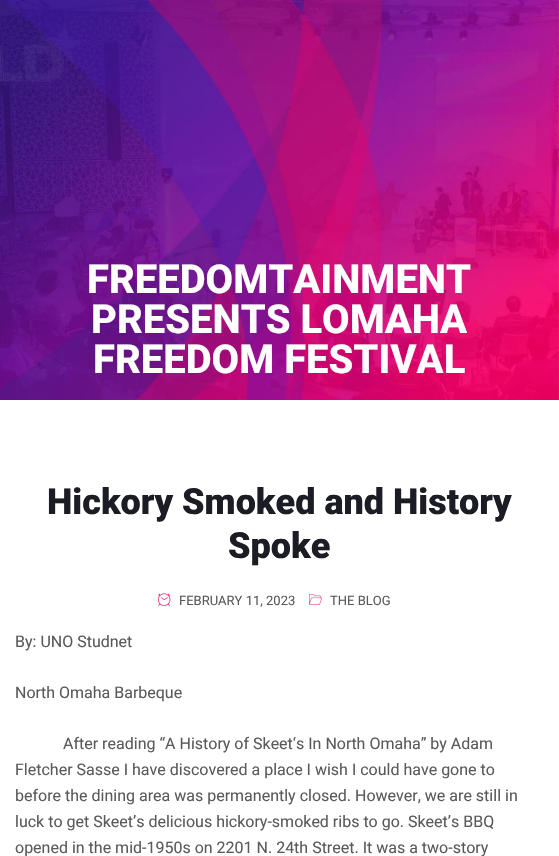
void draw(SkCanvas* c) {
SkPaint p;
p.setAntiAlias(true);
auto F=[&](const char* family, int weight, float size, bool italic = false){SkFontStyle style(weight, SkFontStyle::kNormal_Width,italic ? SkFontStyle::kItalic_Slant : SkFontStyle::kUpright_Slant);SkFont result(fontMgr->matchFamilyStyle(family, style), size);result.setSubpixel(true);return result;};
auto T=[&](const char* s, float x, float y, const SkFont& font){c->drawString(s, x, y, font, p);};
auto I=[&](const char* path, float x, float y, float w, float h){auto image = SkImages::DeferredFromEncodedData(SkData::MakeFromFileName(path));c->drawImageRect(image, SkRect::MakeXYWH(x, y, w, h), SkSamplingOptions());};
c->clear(0xffffffff);
I("1.png",0,0,559,400);
auto f1 = F("Roboto",800,40);
p.setColor(0xffffffff);
T("FREEDOMTAINMENT",87,293,f1);
T("PRESENTS LOMAHA",91,333,f1);
T("FREEDOM FESTIVAL",93,373,f1);
auto f2 = F("Roboto",900,36);
p.setColor(0xff1c1c24);
T("Hickory Smoked and History",47,514,f2);
T("Spoke",228,558,f2);
I("2.png",158,593,13,13);
auto f3 = F("Roboto",400,13);
p.setColor(0xff5a5a5a);
T("FEBRUARY 11, 2023",179,605,f3);
I("3.png",309,594,13,11);
T("THE BLOG",330,605,f3);
auto f4 = F("Roboto",400,16);
T("By: UNO Studnet",15,647,f4);
T("North Omaha Barbeque",15,698,f4);
T("After reading “A History of Skeet‘s In North Omaha” by Adam",63,749,f4);
T("Fletcher Sasse I have discovered a place I wish I could have gone to",15,775,f4);
T("before the dining area was permanently closed. However, we are still in",15,801,f4);
T("luck to get Skeet’s delicious hickory-smoked ribs to go. Skeet’s BBQ",15,827,f4);
T("opened in the mid-1950s on 2201 N. 24th Street. It was a two-story",15,853,f4);
}
